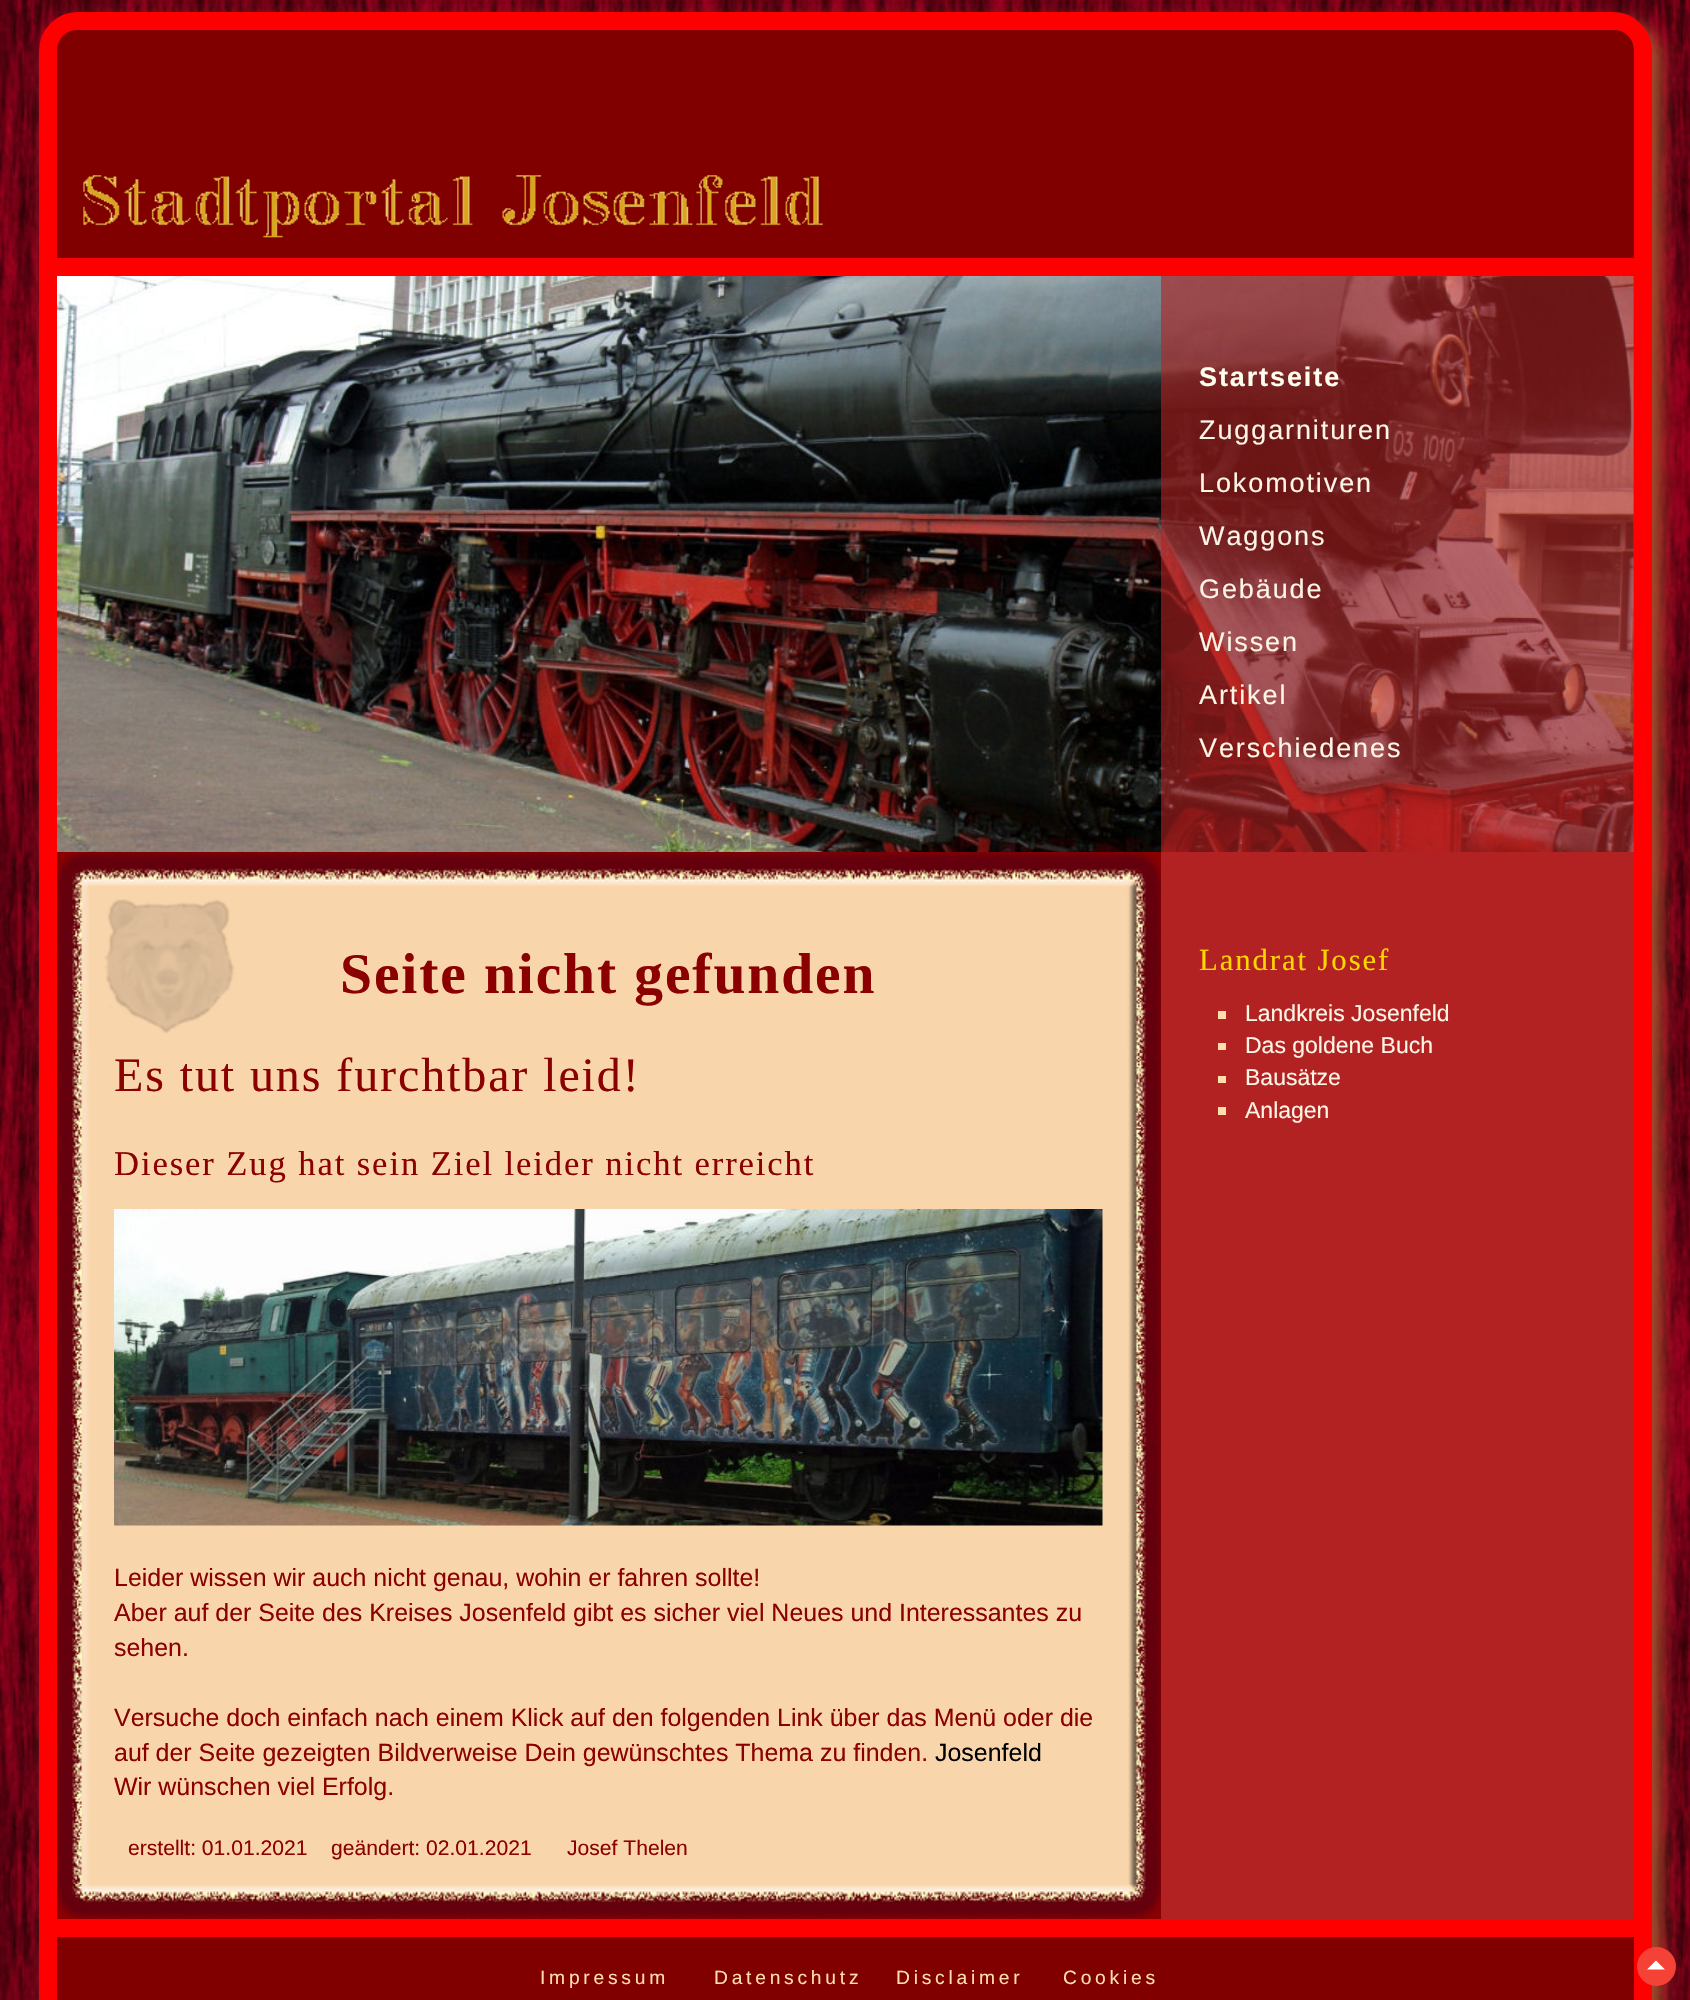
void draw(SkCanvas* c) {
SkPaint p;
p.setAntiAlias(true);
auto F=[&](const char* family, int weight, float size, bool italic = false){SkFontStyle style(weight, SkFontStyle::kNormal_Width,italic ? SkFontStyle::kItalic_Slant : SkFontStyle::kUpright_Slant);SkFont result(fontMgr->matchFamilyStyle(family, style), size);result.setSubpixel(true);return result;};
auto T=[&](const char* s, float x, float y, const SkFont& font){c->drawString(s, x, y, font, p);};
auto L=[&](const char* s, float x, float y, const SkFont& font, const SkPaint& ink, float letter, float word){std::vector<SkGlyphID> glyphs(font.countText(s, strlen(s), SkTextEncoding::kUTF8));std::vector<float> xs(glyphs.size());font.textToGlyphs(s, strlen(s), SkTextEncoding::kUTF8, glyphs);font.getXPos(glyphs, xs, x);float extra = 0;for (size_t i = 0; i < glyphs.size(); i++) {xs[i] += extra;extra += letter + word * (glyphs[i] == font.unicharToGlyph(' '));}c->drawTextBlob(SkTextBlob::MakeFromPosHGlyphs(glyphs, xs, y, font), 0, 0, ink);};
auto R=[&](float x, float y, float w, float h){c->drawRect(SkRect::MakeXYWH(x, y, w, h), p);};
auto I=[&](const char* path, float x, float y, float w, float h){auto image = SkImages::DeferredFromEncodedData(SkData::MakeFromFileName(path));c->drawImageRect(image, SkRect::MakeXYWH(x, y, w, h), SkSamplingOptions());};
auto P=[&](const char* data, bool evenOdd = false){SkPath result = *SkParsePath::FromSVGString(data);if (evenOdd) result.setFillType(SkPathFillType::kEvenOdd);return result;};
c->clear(0xffffffff);
I("1.png",0,0,1690,2000);
p.setColor(0xffa0522d);
p.setMaskFilter(SkMaskFilter::MakeBlur(kNormal_SkBlurStyle, 7.5));
c->drawRoundRect(SkRect::MakeXYWH(48,21,1613,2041),39,39,p);
p.setMaskFilter(nullptr);
p.setStroke(true);
p.setStrokeWidth(18);
p.setColor(0xffff0000);
c->drawRoundRect(SkRect::MakeXYWH(48,21,1595,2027),30,30,p);
p.setColor(0xff800000);
c->drawPath(P("M77 39h1537c6 0 11 5 11 11v199h-1559v-199c0-6 5-11 11-11z"),p);
p.setStroke(false);
R(75,48,1541,192);
I("2.png",83,175,740,63);
p.setColor(0xffff0000);
R(57,258,1577,18);
I("3.png",57,276,1577,576);
p.setColor(0x99b22222);
R(1161,276,473,576);
auto f1 = F("Liberation Sans",700,27);
p.setColor(0xfffffff0);
L("Startseite",1199,386,f1,p,1.9,0);
auto f2 = F("Liberation Sans",400,27);
p.setColor(0xfffdf5e6);
L("Zuggarnituren",1199,439,f2,p,1.9,0);
L("Lokomotiven",1199,492,f2,p,1.9,0);
L("Waggons",1199,545,f2,p,1.9,0);
L("Gebäude",1199,598,f2,p,1.9,0);
L("Wissen",1199,651,f2,p,1.9,0);
L("Artikel",1199,704,f2,p,1.9,0);
L("Verschiedenes",1199,757,f2,p,1.9,0);
p.setColor(0xff8b0000);
R(57,852,1104,1067);
I("4.png",57,852,1104,198);
auto f3 = F("Liberation Serif",700,57.5);
L("Seite nicht gefunden",340,993,f3,p,1.9,0);
I("5.png",57,1050,1104,834);
auto f4 = F("Liberation Serif",400,48);
L("Es tut uns furchtbar leid!",114,1091,f4,p,1.9,0);
auto f5 = F("Liberation Serif",400,34.6);
L("Dieser Zug hat sein Ziel leider nicht erreicht",114,1175,f5,p,1.9,0);
I("6.png",114,1209,989,317);
auto f6 = F("Liberation Sans",400,24.95);
T("Leider wissen wir auch nicht genau, wohin er fahren sollte!",114,1586,f6);
T("Aber auf der Seite des Kreises Josenfeld gibt es sicher viel Neues und Interessantes zu",114,1621,f6);
T("sehen.",114,1656,f6);
T("Versuche doch einfach nach einem Klick auf den folgenden Link über das Menü oder die",114,1726,f6);
T("auf der Seite gezeigten Bildverweise Dein gewünschtes Thema zu finden.",114,1761,f6);
p.setColor(0xff000000);
T("Josenfeld",935,1761,f6);
p.setColor(0xff8b0000);
T("Wir wünschen viel Erfolg.",114,1795,f6);
auto f7 = F("Liberation Sans",400,21.1);
T("erstellt: 01.01.2021",128,1855,f7);
T("geändert: 02.01.2021",331,1855,f7);
T("Josef Thelen",567,1855,f7);
I("7.png",57,1884,1104,35);
p.setColor(0xffb22222);
R(1161,852,473,1067);
auto f8 = F("Liberation Serif",400,30.75);
p.setColor(0xffffd700);
L("Landrat Josef",1199,970,f8,p,1.9,0);
p.setColor(0xffffdead);
R(1218,1011,8,8);
auto f9 = F("Liberation Sans",400,23);
p.setColor(0xfffdf5e6);
T("Landkreis Josenfeld",1245,1021,f9);
p.setColor(0xffffdead);
R(1218,1043,8,7);
p.setColor(0xfffdf5e6);
T("Das goldene Buch",1245,1053,f9);
p.setColor(0xffffdead);
R(1218,1076,8,7);
p.setColor(0xfffdf5e6);
T("Bausätze",1245,1085,f9);
p.setColor(0xffffdead);
R(1218,1107,8,8);
p.setColor(0xfffdf5e6);
T("Anlagen",1245,1118,f9);
p.setColor(0xffff0000);
R(57,1919,1577,18);
p.setColor(0xff800000);
R(57,1937,1577,63);
auto f10 = F("Liberation Sans",400,19.25);
p.setColor(0xffffdead);
L("Impressum",540,1984,f10,p,3.75,0);
L("Datenschutz",714,1984,f10,p,3.75,0);
L("Disclaimer",896,1984,f10,p,3.75,0);
L("Cookies",1063,1984,f10,p,3.75,0);
p.setColor(0xfff44336);
c->drawCircle(1656.5,1966.5,19.5,p);
p.setColor(0xffffffff);
c->drawPath(P("M1665 1969.5h-18l9-9z"),p);
}
